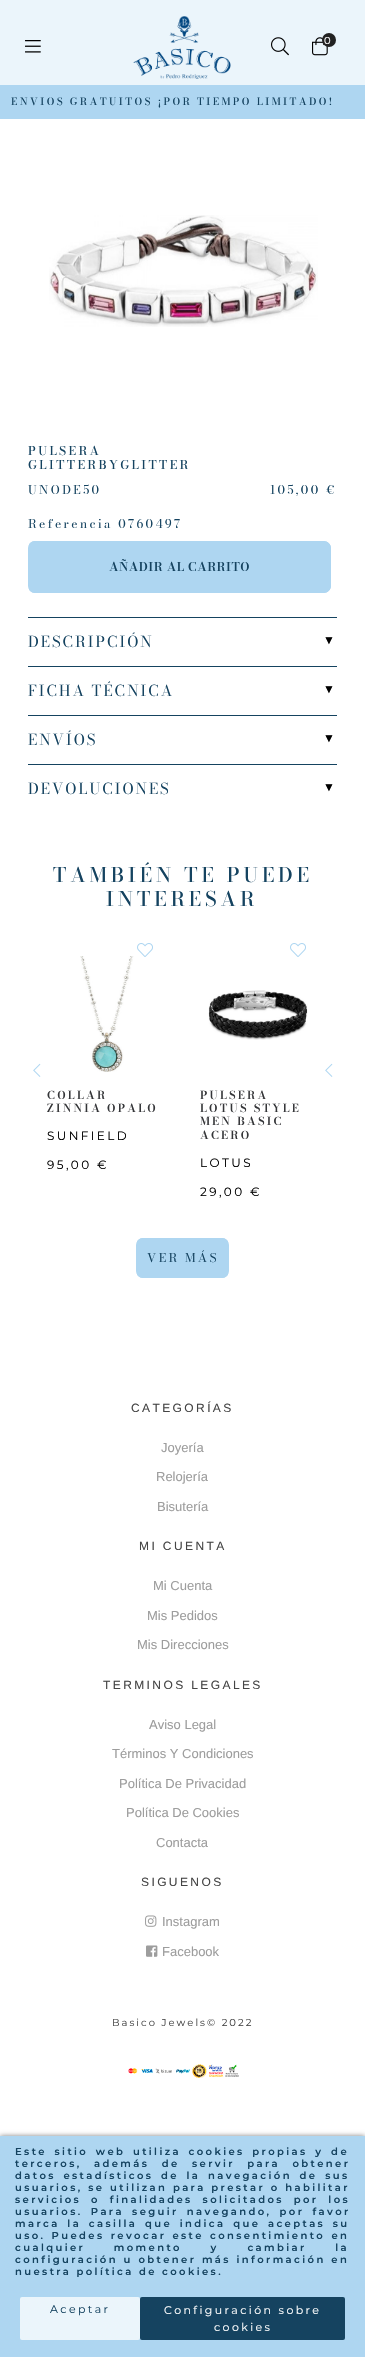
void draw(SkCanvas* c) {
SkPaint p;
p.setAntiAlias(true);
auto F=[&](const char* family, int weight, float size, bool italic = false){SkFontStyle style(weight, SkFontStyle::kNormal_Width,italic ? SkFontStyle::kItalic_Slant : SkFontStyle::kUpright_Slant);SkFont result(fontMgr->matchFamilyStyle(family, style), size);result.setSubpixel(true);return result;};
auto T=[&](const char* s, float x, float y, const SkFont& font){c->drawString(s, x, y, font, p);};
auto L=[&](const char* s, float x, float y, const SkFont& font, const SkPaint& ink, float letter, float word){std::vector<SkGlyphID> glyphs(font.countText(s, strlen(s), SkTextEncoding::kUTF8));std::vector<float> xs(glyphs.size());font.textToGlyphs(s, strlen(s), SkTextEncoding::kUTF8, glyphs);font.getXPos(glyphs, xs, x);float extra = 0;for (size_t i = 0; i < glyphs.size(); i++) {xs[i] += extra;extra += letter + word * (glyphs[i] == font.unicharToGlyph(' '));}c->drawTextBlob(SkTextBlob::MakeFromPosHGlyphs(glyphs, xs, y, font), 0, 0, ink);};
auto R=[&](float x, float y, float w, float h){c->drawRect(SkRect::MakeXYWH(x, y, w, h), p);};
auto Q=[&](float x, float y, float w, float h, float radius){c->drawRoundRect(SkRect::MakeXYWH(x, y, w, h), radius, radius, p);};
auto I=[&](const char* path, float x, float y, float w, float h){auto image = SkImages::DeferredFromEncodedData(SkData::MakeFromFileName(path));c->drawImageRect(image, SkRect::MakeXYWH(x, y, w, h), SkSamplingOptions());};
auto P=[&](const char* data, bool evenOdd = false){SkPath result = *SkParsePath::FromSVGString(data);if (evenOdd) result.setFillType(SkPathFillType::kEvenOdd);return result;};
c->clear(0xffffffff);
p.setColor(0xffebf5fb);
R(0,0,365,85);
I("1.png",25,40,16,13);
I("2.png",133,16,98,63);
I("3.png",271,37,18,19);
I("4.png",312,37,16,19);
p.setColor(0xff222222);
c->drawCircle(329,40,7,p);
auto f1 = F("Montserrat",400,10);
p.setColor(0xffffffff);
L("0",324,44,f1,p,2.4,0);
p.setColor(0xffaed6f1);
R(0,85,365,34);
auto f2 = F("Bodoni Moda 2",500,10);
p.setColor(0xff154360);
L("ENVIOS GRATUITOS ¡POR TIEMPO LIMITADO!",11,105,f2,p,2.4,0);
I("5.png",49,215,269,112);
auto f3 = F("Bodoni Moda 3",500,12);
L("PULSERA",28,455,f3,p,2.4,0);
L("GLITTERBYGLITTER",28,469,f3,p,2.4,0);
auto f4 = F("Bodoni Moda",400,12);
L("UNODE50",28,494,f4,p,2.4,0);
L("105,00 €",270,494,f4,p,2.4,0);
L("Referencia 0760497",28,528,f4,p,2.4,0);
c->save();
c->clipPath(P("M35 541h289c4 0 7 3 7 7v38c0 4-3 7-7 7h-289c-4 0-7-3-7-7v-38c0-4 3-7 7-7z"),true);
p.setColor(0xffaed6f1);
c->drawPath(P("M29 541h295c4 0 7 3 7 7v38c0 4-3 7-7 7h-295z"),p);
c->restore();
p.setStroke(true);
p.setStrokeWidth(1);
c->drawRoundRect(SkRect::MakeXYWH(28.5,541.5,302,51),6.5,6.5,p);
auto f5 = F("Bodoni Moda",600,12);
p.setStroke(false);
p.setColor(0xff154360);
L("AÑADIR AL CARRITO",109,571,f5,p,.5,0);
R(28,617,309,1);
auto f6 = F("Bodoni Moda 2",400,15);
L("DESCRIPCIÓN",28,647,f6,p,2,0);
auto f7 = F("Liberation Serif",400,12);
p.setColor(0xff000000);
L("▼",323,644,f7,p,2,0);
p.setColor(0xff154360);
R(28,666,309,1);
L("FICHA TÉCNICA",28,696,f6,p,2,0);
p.setColor(0xff000000);
L("▼",323,693,f7,p,2,0);
p.setColor(0xff154360);
R(28,715,309,1);
L("ENVÍOS",28,745,f6,p,2,0);
p.setColor(0xff000000);
L("▼",323,742,f7,p,2,0);
p.setColor(0xff154360);
R(28,764,309,1);
L("DEVOLUCIONES",28,794,f6,p,2,0);
p.setColor(0xff000000);
L("▼",323,791,f7,p,2,0);
auto f8 = F("Bodoni Moda",500,20);
p.setColor(0xff154360);
L("TAMBIÉN TE PUEDE",53,882,f8,p,4,0);
L("INTERESAR",106,906,f8,p,4,0);
I("6.png",33,1063,8,14);
I("6.png",325,1063,8,14);
I("7.png",137,943,16,14);
I("8.png",80,956,54,116);
auto f9 = F("Bodoni Moda",600,11);
p.setColor(0xff343538);
L("COLLAR",47,1099,f9,p,2.25,0);
L("ZINNIA OPALO",47,1112,f9,p,2.25,0);
auto f10 = F("Montserrat",400,12);
p.setColor(0xff000000);
L("SUNFIELD",47,1140,f10,p,2.4,0);
L("95,00 €",47,1169,f10,p,2.4,0);
I("7.png",290,943,16,14);
I("9.png",208,990,100,50);
p.setColor(0xff343538);
L("PULSERA",200,1099,f9,p,2.25,0);
L("LOTUS STYLE",200,1112,f9,p,2.25,0);
L("MEN BASIC",200,1125,f9,p,2.25,0);
L("ACERO",200,1139,f9,p,2.25,0);
p.setColor(0xff000000);
L("LOTUS",200,1167,f10,p,2.4,0);
L("29,00 €",200,1196,f10,p,2.4,0);
c->save();
c->clipPath(P("M143 1238h79c4 0 7 3 7 7v26c0 4-3 7-7 7h-79c-4 0-7-3-7-7v-26c0-4 3-7 7-7z"),true);
p.setColor(0xffaed6f1);
R(137,1238,91,40);
c->restore();
p.setStroke(true);
c->drawRoundRect(SkRect::MakeXYWH(136.5,1238.5,92,39),6.5,6.5,p);
p.setStroke(false);
p.setColor(0xff154360);
L("VER MÁS",147,1262,f4,p,2.4,0);
auto f11 = F("Liberation Sans",400,12);
p.setColor(0xff454545);
L("CATEGORÍAS",131,1412,f11,p,2.4,0);
auto f12 = F("Liberation Sans",400,13);
p.setColor(0xff9d9d9d);
T("Joyería",161,1452,f12);
T("Relojería",156,1481,f12);
T("Bisutería",157,1511,f12);
p.setColor(0xff454545);
L("MI CUENTA",139,1550,f11,p,2.4,0);
p.setColor(0xff9d9d9d);
T("Mi Cuenta",153,1590,f12);
T("Mis Pedidos",147,1620,f12);
T("Mis Direcciones",137,1649,f12);
p.setColor(0xff454545);
L("TERMINOS LEGALES",103,1689,f11,p,2.4,0);
p.setColor(0xff9d9d9d);
T("Aviso Legal",149,1729,f12);
T("Términos Y Condiciones",112,1758,f12);
T("Política De Privacidad",119,1788,f12);
T("Política De Cookies",126,1817,f12);
T("Contacta",156,1847,f12);
p.setColor(0xff454545);
L("SIGUENOS",141,1886,f11,p,2.4,0);
I("10.png",145,1915,12,12);
p.setColor(0xff9d9d9d);
T("Instagram",162,1926,f12);
I("11.png",146,1945,12,12);
T("Facebook",162,1956,f12);
p.setColor(0xff454545);
L("Basico Jewels© 2022",112,2026,f1,p,2,0);
I("12.png",128,2064,111,14);
p.setColor(0x80000000);
p.setMaskFilter(SkMaskFilter::MakeBlur(kNormal_SkBlurStyle, 2.5));
c->drawRect(SkRect::MakeXYWH(0,2136,365,221),p);
p.setMaskFilter(nullptr);
p.setColor(0xffaed6f1);
R(0,2136,365,221);
auto f13 = F("Montserrat",600,10);
p.setColor(0xff154360);
L("Este sitio web utiliza cookies propias y de",15,2155,f13,p,2.4,2.5);
L("terceros, además de servir para obtener",15,2167,f13,p,2.4,7.25);
L("datos estadísticos de la navegación de sus",15,2179,f13,p,2.4,2.5);
L("usuarios, se utilizan para prestar o habilitar",15,2191,f13,p,2.4,.5);
L("servicios o finalidades solicitados por los",15,2203,f13,p,2.4,4.75);
L("usuarios. Para seguir navegando, por favor",15,2215,f13,p,2.4,3);
L("marca la casilla que indica que aceptas su",15,2227,f13,p,2.4,2.5);
L("uso. Puedes revocar este consentimiento en",15,2239,f13,p,2.4,1);
L("cualquier momento y cambiar la",15,2251,f13,p,2.4,23.5);
L("configuración u obtener más información en",15,2263,f13,p,2.4,.5);
L("nuestra política de cookies.",15,2275,f13,p,2.4,0);
p.setColor(0xffebf5fb);
Q(20,2297,120,43,2);
auto f14 = F("Montserrat",400,11);
p.setColor(0xff154360);
L("Aceptar",50,2313,f14,p,2.4,0);
Q(140,2297,205,43,2);
p.setColor(0xffffffff);
L("Configuración sobre",164,2314,f14,p,2.4,0);
L("cookies",214,2331,f14,p,2.4,0);
}
